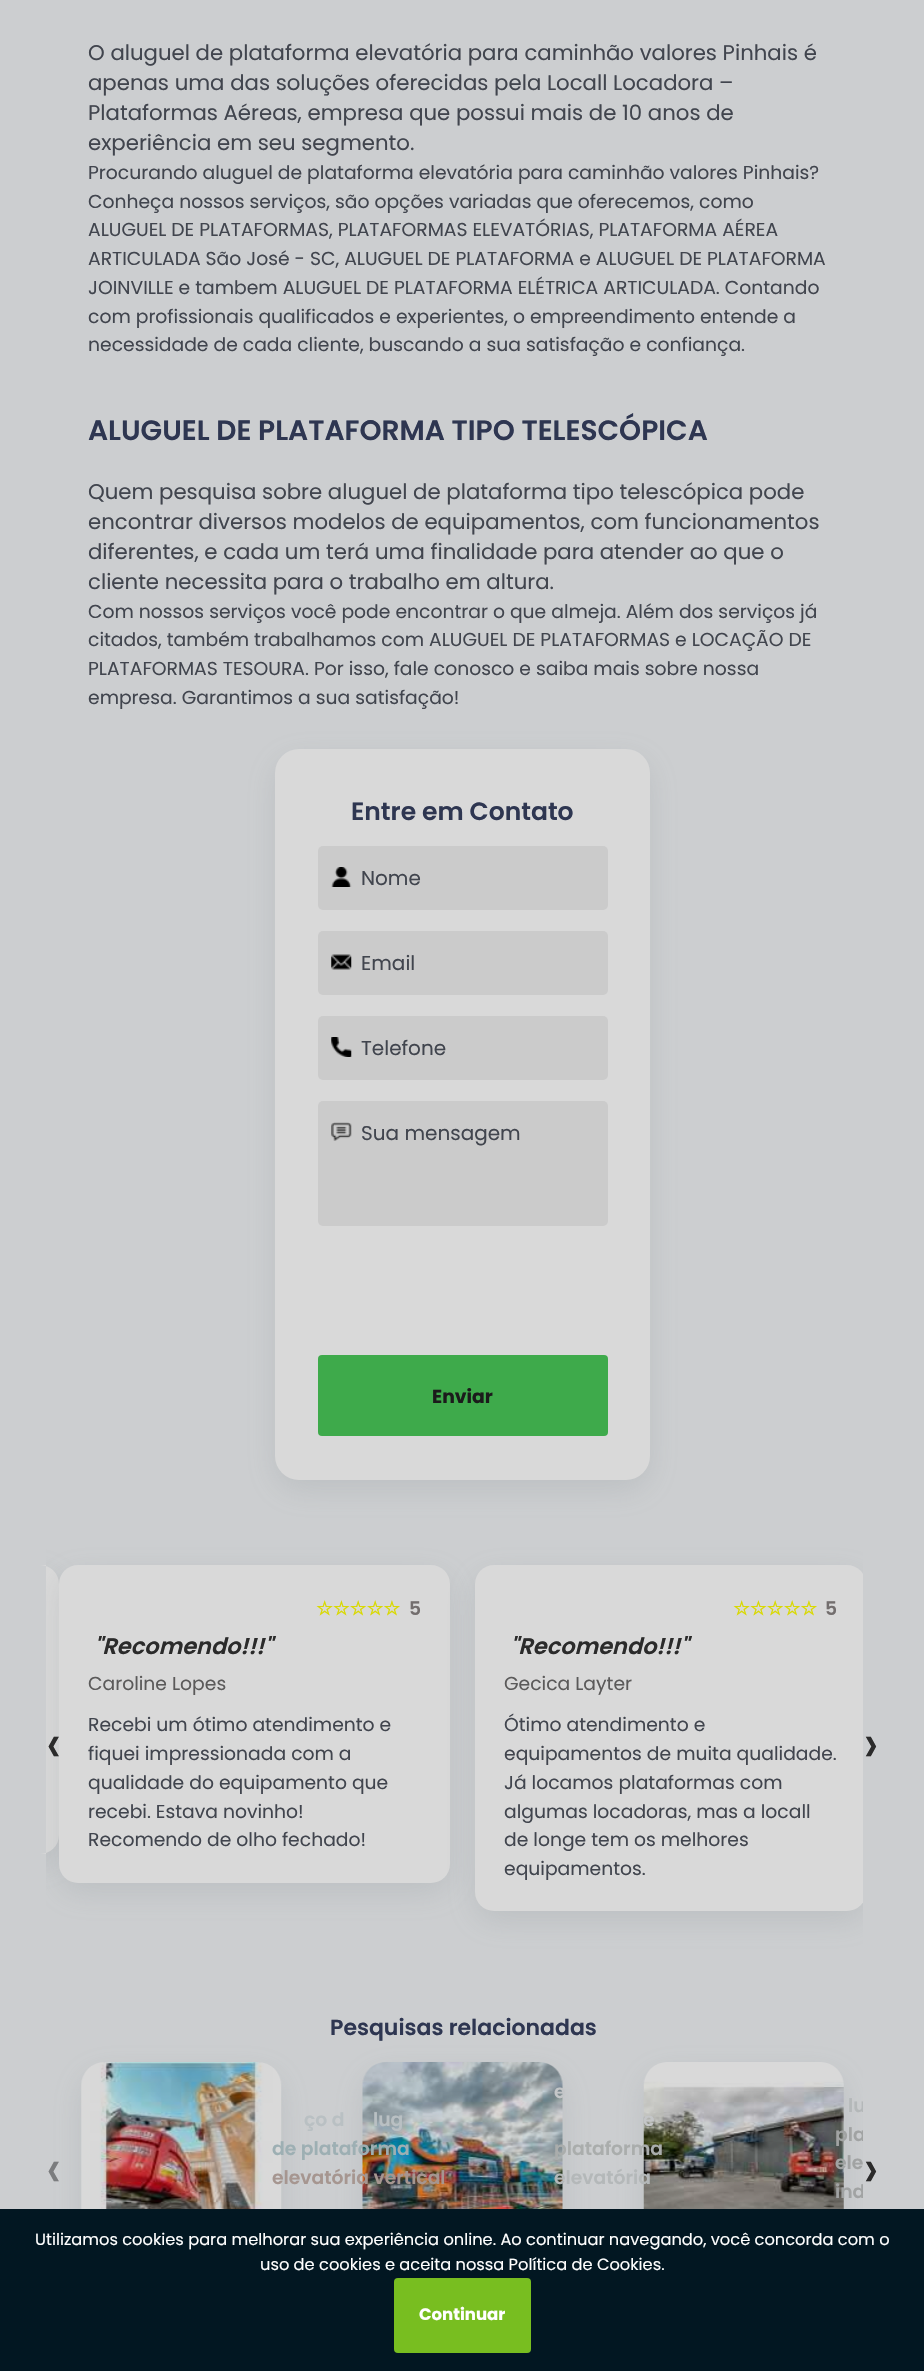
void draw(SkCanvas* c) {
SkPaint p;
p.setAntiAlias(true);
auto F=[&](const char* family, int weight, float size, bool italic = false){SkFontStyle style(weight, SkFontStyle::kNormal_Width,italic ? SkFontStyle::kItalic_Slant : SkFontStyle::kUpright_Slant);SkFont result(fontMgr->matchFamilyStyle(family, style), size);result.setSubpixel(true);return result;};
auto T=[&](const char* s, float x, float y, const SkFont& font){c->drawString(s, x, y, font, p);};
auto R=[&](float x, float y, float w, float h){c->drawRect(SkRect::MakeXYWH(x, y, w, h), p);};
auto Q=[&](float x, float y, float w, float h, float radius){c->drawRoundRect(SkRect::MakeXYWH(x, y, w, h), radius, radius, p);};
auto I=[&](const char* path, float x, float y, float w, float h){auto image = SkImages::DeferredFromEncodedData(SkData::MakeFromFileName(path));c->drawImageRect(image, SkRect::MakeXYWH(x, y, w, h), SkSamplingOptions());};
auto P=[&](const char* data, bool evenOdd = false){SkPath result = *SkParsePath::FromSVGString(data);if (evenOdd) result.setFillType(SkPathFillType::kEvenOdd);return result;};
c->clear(0xffccced0);
auto f1 = F("Poppins",400,21.25);
p.setColor(0xff41454e);
T("O aluguel de plataforma elevatória para caminhão valores Pinhais é",88,60,f1);
T("apenas uma das soluções oferecidas pela Locall Locadora –",88,90,f1);
T("Plataformas Aéreas, empresa que possui mais de 10 anos de",88,120,f1);
T("experiência em seu segmento.",88,150,f1);
auto f2 = F("Poppins",400,18.75);
T("Procurando aluguel de plataforma elevatória para caminhão valores Pinhais?",88,179,f2);
T("Conheça nossos serviços, são opções variadas que oferecemos, como",88,208,f2);
T("ALUGUEL DE PLATAFORMAS, PLATAFORMAS ELEVATÓRIAS, PLATAFORMA AÉREA",88,236,f2);
T("ARTICULADA São José - SC, ALUGUEL DE PLATAFORMA e ALUGUEL DE PLATAFORMA",88,265,f2);
T("JOINVILLE e tambem ALUGUEL DE PLATAFORMA ELÉTRICA ARTICULADA. Contando",88,294,f2);
T("com profissionais qualificados e experientes, o empreendimento entende a",88,323,f2);
T("necessidade de cada cliente, buscando a sua satisfação e confiança.",88,351,f2);
auto f3 = F("Poppins",600,28.1);
p.setColor(0xff2e3651);
T("ALUGUEL DE PLATAFORMA TIPO TELESCÓPICA",88,440,f3);
p.setColor(0xff41454e);
T("Quem pesquisa sobre aluguel de plataforma tipo telescópica pode",88,499,f1);
T("encontrar diversos modelos de equipamentos, com funcionamentos",88,529,f1);
T("diferentes, e cada um terá uma finalidade para atender ao que o",88,559,f1);
T("cliente necessita para o trabalho em altura.",88,589,f1);
T("Com nossos serviços você pode encontrar o que almeja. Além dos serviços já",88,618,f2);
T("citados, também trabalhamos com ALUGUEL DE PLATAFORMAS e LOCAÇÃO DE",88,646,f2);
T("PLATAFORMAS TESOURA. Por isso, fale conosco e saiba mais sobre nossa",88,675,f2);
T("empresa. Garantimos a sua satisfação!",88,704,f2);
p.setColor(0x337f858c);
p.setMaskFilter(SkMaskFilter::MakeBlur(kNormal_SkBlurStyle, 15));
c->drawRoundRect(SkRect::MakeXYWH(275,759,375,731),24,24,p);
p.setMaskFilter(nullptr);
p.setColor(0xffd9d9d9);
Q(275,749,375,731,24);
auto f4 = F("Poppins",600,25);
p.setColor(0xff2e3651);
T("Entre em Contato",351,820,f4);
p.setColor(0xffcbcbcb);
Q(318,846,290,64,5);
I("1.png",331,867,21,20);
auto f5 = F("Poppins",400,20);
p.setColor(0xff41454e);
T("Nome",361,885,f5);
p.setColor(0xffcbcbcb);
Q(318,931,290,64,5);
I("2.png",331,954,21,16);
p.setColor(0xff41454e);
T("Email",361,970,f5);
p.setColor(0xffcbcbcb);
Q(318,1016,290,64,5);
I("3.png",331,1037,21,20);
p.setColor(0xff41454e);
T("Telefone",361,1055,f5);
p.setColor(0xffcbcbcb);
Q(318,1101,290,125,5);
I("4.png",331,1122,21,19);
p.setColor(0xff41454e);
T("Sua mensagem",361,1140,f5);
p.setColor(0xff3eaa4b);
Q(318,1355,290,81,4);
auto f6 = F("Poppins",700,18.75);
p.setColor(0xff1b1b1b);
T("Enviar",432,1403,f6);
c->save();
c->clipRect(SkRect::MakeXYWH(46,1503,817,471));
p.setColor(0x337f858c);
p.setMaskFilter(SkMaskFilter::MakeBlur(kNormal_SkBlurStyle, 15));
c->drawRoundRect(SkRect::MakeXYWH(-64,1575,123,289),19,19,p);
p.setMaskFilter(nullptr);
c->restore();
p.setColor(0xffd9d9d9);
c->drawPath(P("M46 1565h-6c10.5 0 19 8.5 19 19v251c0 10.5-8.5 19-19 19h6z"),p);
c->save();
c->clipRect(SkRect::MakeXYWH(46,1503,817,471));
p.setColor(0x337f858c);
p.setMaskFilter(SkMaskFilter::MakeBlur(kNormal_SkBlurStyle, 15));
c->drawRoundRect(SkRect::MakeXYWH(59,1575,391,318),19,19,p);
p.setMaskFilter(nullptr);
c->restore();
p.setColor(0xffd9d9d9);
Q(59,1565,391,318,19);
auto f7 = F("DejaVu Sans",700,18.75);
p.setColor(0xffd9d900);
T("☆☆☆☆☆",316,1615,f7);
auto f8 = F("Poppins",600,18.75);
p.setColor(0xff736e6e);
T("5",409,1615,f8);
auto f9 = F("Poppins",600,22.5,true);
p.setColor(0xff2b2b2b);
T("\"Recomendo!!!\"",94,1654,f9);
p.setColor(0xff5b5a5a);
T("Caroline Lopes",88,1690,f2);
p.setColor(0xff41454e);
T("Recebi um ótimo atendimento e",88,1731,f2);
T("fiquei impressionada com a",88,1760,f2);
T("qualidade do equipamento que",88,1789,f2);
T("recebi. Estava novinho!",88,1818,f2);
T("Recomendo de olho fechado!",88,1846,f2);
c->save();
c->clipRect(SkRect::MakeXYWH(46,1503,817,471));
p.setColor(0x337f858c);
p.setMaskFilter(SkMaskFilter::MakeBlur(kNormal_SkBlurStyle, 15));
c->drawRoundRect(SkRect::MakeXYWH(475,1575,391,346),19,19,p);
p.setMaskFilter(nullptr);
c->restore();
auto f10 = F("Poppins",400,56);
p.setColor(0xff2b2b2b);
T("›",863,1763,f10);
c->save();
c->clipRect(SkRect::MakeXYWH(46,1503,817,471));
p.setColor(0xffd9d9d9);
Q(475,1565,391,346,19);
c->restore();
p.setColor(0xffd9d900);
T("☆☆☆☆☆",733,1615,f7);
p.setColor(0xff736e6e);
T("5",825,1615,f8);
p.setColor(0xff2b2b2b);
T("\"Recomendo!!!\"",510,1654,f9);
p.setColor(0xff5b5a5a);
T("Gecica Layter",504,1690,f2);
p.setColor(0xff41454e);
T("Ótimo atendimento e",504,1731,f2);
T("equipamentos de muita qualidade.",504,1760,f2);
T("Já locamos plataformas com",504,1789,f2);
T("algumas locadoras, mas a locall",504,1818,f2);
T("de longe tem os melhores",504,1846,f2);
T("equipamentos.",504,1875,f2);
p.setColor(0xff2b2b2b);
T("‹",46,1763,f10);
auto f11 = F("Poppins",600,22);
p.setColor(0xff2e3651);
T("Pesquisas relacionadas",330,2035,f11);
p.setColor(0x337f858c);
p.setMaskFilter(SkMaskFilter::MakeBlur(kNormal_SkBlurStyle, 15));
c->drawRoundRect(SkRect::MakeXYWH(81,2073,200,200),24,24,p);
p.setMaskFilter(nullptr);
I("5.png",81,2062,201,147);
p.setMaskFilter(SkMaskFilter::MakeBlur(kNormal_SkBlurStyle, 15));
c->drawRoundRect(SkRect::MakeXYWH(363,2073,200,200),24,24,p);
p.setMaskFilter(nullptr);
p.setColor(0xffb9c0c3);
T("ço d",304,2126,f8);
I("6.png",362,2062,201,147);
T("lug",373,2126,f8);
p.setColor(0xff9dafb3);
T("de plataforma",272,2155,f8);
p.setColor(0xffa69690);
T("elevatória vertical",272,2184,f8);
c->save();
c->clipRect(SkRect::MakeXYWH(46,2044,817,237));
p.setColor(0x337f858c);
p.setMaskFilter(SkMaskFilter::MakeBlur(kNormal_SkBlurStyle, 15));
c->drawRoundRect(SkRect::MakeXYWH(644,2073,200,200),24,24,p);
p.setMaskFilter(nullptr);
c->restore();
p.setColor(0xffc4c6c8);
T("e",554,2098,f8);
I("7.png",643,2062,201,147);
T("e",643,2126,f8);
p.setColor(0xffaaadac);
T("plataforma",554,2155,f8);
p.setColor(0xffb4b8b9);
T("elevatória",554,2184,f8);
c->save();
c->clipRect(SkRect::MakeXYWH(46,2044,817,237));
T("lu",848,2112,f8);
p.setColor(0xffa1a3a3);
T("pla",835,2141,f8);
c->restore();
T("ele",835,2169,f8);
c->save();
c->clipRect(SkRect::MakeXYWH(46,2044,817,237));
T("ind",835,2198,f8);
c->restore();
p.setColor(0xff7b7c7e);
T("‹",46,2188,f10);
p.setColor(0xff2b2b2b);
T("›",863,2188,f10);
p.setColor(0xff021722);
R(0,2209,924,162);
auto f12 = F("Poppins",400,16.25);
p.setColor(0xffffffff);
T("Utilizamos cookies para melhorar sua experiência online. Ao continuar navegando, você concorda com o",35,2245,f12);
T("uso de cookies e aceita nossa Política de Cookies.",260,2270,f12);
p.setColor(0xff78be20);
Q(394,2278,137,75,4);
auto f13 = F("Poppins",700,16.5);
p.setColor(0xffffffff);
T("Continuar",419,2320,f13);
}
